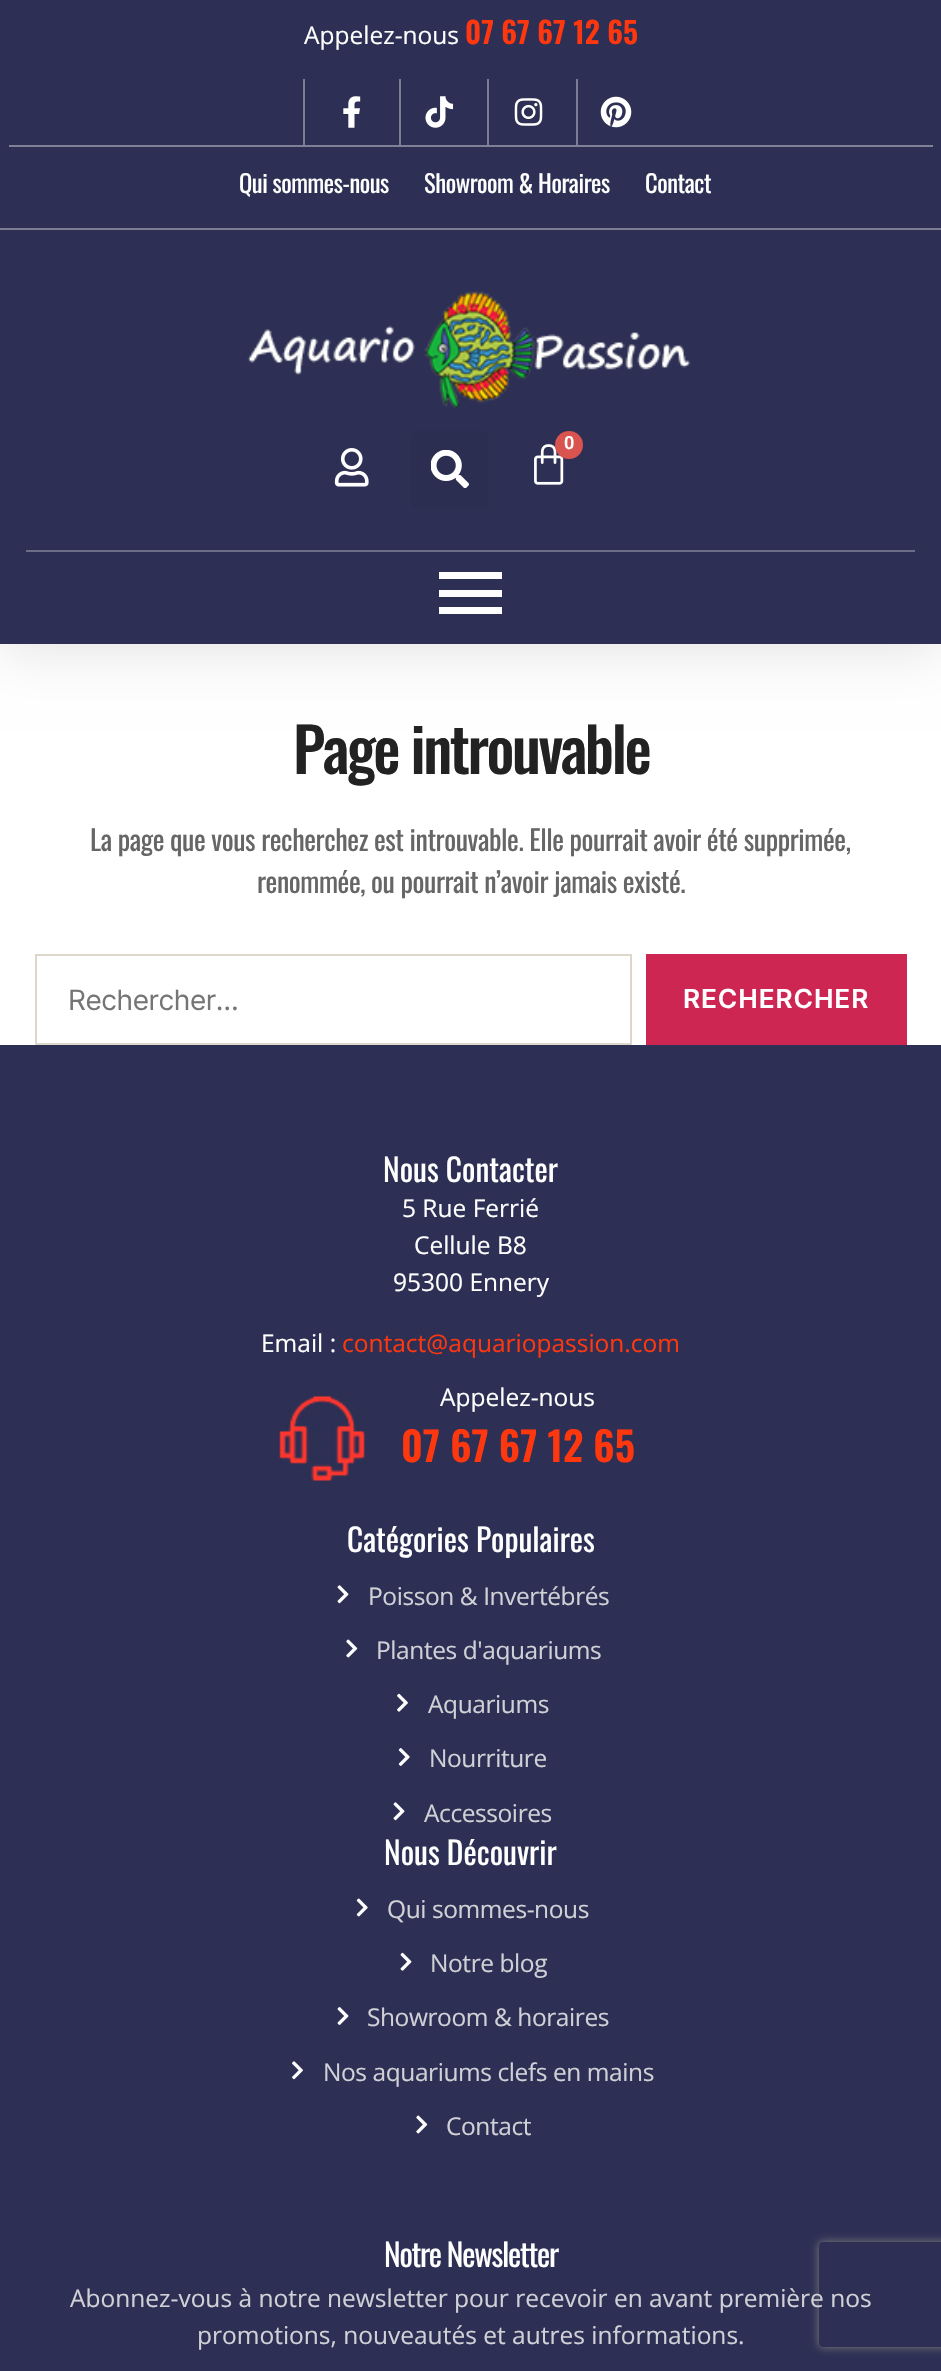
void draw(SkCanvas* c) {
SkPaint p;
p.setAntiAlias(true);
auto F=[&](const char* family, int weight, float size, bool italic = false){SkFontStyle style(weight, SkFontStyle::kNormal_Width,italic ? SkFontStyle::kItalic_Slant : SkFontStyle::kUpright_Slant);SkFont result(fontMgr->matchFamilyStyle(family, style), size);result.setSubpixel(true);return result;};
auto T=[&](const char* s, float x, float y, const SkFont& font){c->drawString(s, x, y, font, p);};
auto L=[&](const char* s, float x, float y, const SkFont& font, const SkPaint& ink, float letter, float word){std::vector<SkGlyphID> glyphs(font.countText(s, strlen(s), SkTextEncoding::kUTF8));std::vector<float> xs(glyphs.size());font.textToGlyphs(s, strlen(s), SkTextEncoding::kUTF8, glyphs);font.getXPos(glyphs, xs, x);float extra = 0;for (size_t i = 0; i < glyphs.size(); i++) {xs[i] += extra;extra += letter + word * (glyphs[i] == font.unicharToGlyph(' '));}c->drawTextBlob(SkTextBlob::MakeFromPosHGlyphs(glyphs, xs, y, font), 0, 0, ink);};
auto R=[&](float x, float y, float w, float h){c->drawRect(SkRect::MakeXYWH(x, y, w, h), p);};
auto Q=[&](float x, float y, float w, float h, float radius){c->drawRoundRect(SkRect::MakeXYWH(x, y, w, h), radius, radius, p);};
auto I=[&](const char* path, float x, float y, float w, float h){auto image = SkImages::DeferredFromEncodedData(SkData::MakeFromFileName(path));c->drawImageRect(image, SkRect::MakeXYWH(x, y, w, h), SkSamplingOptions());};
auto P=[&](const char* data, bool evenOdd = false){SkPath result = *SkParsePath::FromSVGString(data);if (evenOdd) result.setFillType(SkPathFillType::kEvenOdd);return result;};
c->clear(0xffffffff);
p.setColor(0x1a000000);
p.setMaskFilter(SkMaskFilter::MakeBlur(kNormal_SkBlurStyle, 26));
c->drawRect(SkRect::MakeXYWH(0,9,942,644),p);
p.setMaskFilter(nullptr);
p.setColor(0xff2d3054);
R(0,0,941,644);
p.setColor(0xff7b7d93);
R(0,228,941,2);
auto f1 = F("Open Sans",400,24.5);
p.setColor(0xffffffff);
T("Appelez-nous",304,44,f1);
auto f2 = F("Oswald",600,29.75);
p.setColor(0xffff370f);
T("07 67 67 12 65",465,44,f2);
p.setColor(0xff7b7d93);
R(303,79,2,66);
I("1.png",343,96,18,32);
R(399,79,2,66);
I("2.png",425,96,29,32);
R(487,79,2,66);
I("3.png",514,98,29,28);
R(576,79,2,66);
I("4.png",600,96,32,32);
p.setColor(0xff7f8197);
R(9,145,924,2);
auto f3 = F("Oswald",400,24.5);
p.setColor(0xffffffff);
L("Qui sommes-nous",239,193,f3,p,-.42,0);
L("Showroom & Horaires",424,193,f3,p,-.42,0);
L("Contact",645,193,f3,p,-.42,0);
I("5.png",247,291,444,118);
p.setColor(0xff2b2e50);
Q(411,431,77,77,5);
I("6.png",431,450,38,38);
I("7.png",534,444,30,41);
p.setColor(0xffd9534f);
c->drawCircle(569,445,14,p);
auto f4 = F("Roboto",600,18);
p.setColor(0xffffffff);
L("0",564,449,f4,p,-.42,0);
I("8.png",334,448,35,39);
p.setColor(0xff6c6e87);
R(26,550,889,2);
p.setColor(0xffffffff);
R(439,572,63,7);
R(439,590,63,7);
R(439,607,63,7);
auto f5 = F("Oswald",500,61.25);
p.setColor(0xff222222);
L("Page introuvable",293,774,f5,p,-2.5,0);
auto f6 = F("Oswald",400,28);
p.setColor(0xff666666);
L("La page que vous recherchez est introuvable. Elle pourrait avoir été supprimée,",90,851,f6,p,-.42,0);
L("renommée, ou pourrait n’avoir jamais existé.",257,893,f6,p,-.42,0);
p.setStroke(true);
p.setStrokeWidth(2);
p.setColor(0xffdcd7ca);
c->drawRect(SkRect::MakeXYWH(36,955,595,89),p);
auto f7 = F("Inter",400,28);
p.setStroke(false);
p.setColor(0xff757575);
L("Rechercher…",68,1010,f7,p,-.42,0);
p.setColor(0xffcd2653);
R(646,954,261,91);
auto f8 = F("Inter",600,26.25);
p.setColor(0xffffffff);
L("RECHERCHER",683,1008,f8,p,.9,0);
p.setColor(0xff2d3054);
R(0,1045,941,1326);
auto f9 = F("Oswald",400,31.5);
p.setColor(0xffffffff);
T("Nous Contacter",383,1182,f9);
T("5 Rue Ferrié",402,1217,f1);
T("Cellule B8",414,1254,f1);
T("95300 Ennery",393,1291,f1);
T("Email :",261,1352,f1);
p.setColor(0xffff370f);
T("contact@aquariopassion.com",342,1352,f1);
I("9.png",279,1396,86,85);
p.setColor(0xffffffff);
T("Appelez-nous",440,1406,f1);
auto f10 = F("Oswald",600,40.25);
p.setColor(0xffff370f);
T("07 67 67 12 65",401,1462,f10);
p.setColor(0xffffffff);
T("Catégories Populaires",347,1552,f9);
I("10.png",337,1585,12,19);
p.setColor(0xffd0d0d6);
L("Poisson & Invertébrés",368,1605,f1,p,-.42,0);
I("11.png",346,1639,12,19);
L("Plantes d'aquariums",376,1659,f1,p,-.42,0);
I("12.png",397,1693,11,19);
L("Aquariums",428,1713,f1,p,-.42,0);
I("13.png",398,1748,12,18);
L("Nourriture",429,1767,f1,p,-.42,0);
I("10.png",393,1802,12,19);
L("Accessoires",424,1822,f1,p,-.42,0);
p.setColor(0xffffffff);
T("Nous Découvrir",384,1865,f9);
I("14.png",356,1898,12,19);
p.setColor(0xffd0d0d6);
L("Qui sommes-nous",387,1918,f1,p,-.42,0);
I("15.png",400,1952,12,19);
L("Notre blog",430,1972,f1,p,-.42,0);
I("16.png",337,2007,12,18);
L("Showroom & horaires",367,2026,f1,p,-.42,0);
I("17.png",292,2061,11,19);
L("Nos aquariums clefs en mains",323,2081,f1,p,-.42,0);
I("11.png",416,2115,12,19);
L("Contact",446,2135,f1,p,-.42,0);
p.setColor(0xffffffff);
L("Notre Newsletter",384,2267,f9,p,-1.25,0);
c->save();
c->clipPath(P("M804 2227h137v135h-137zm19 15h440c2 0 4 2 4 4v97c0 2-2 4-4 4h-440c-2 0-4-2-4-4v-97c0-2 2-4 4-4z",true),true);
p.setColor(0xff808080);
p.setMaskFilter(SkMaskFilter::MakeBlur(kNormal_SkBlurStyle, 4.5));
c->drawRoundRect(SkRect::MakeXYWH(819,2242,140,105),4,4,p);
p.setMaskFilter(nullptr);
c->restore();
p.setColor(0xffd0d0d6);
T("Abonnez-vous à notre newsletter pour recevoir en avant première nos",70,2307,f1);
T("promotions, nouveautés et autres informations.",197,2344,f1);
}
